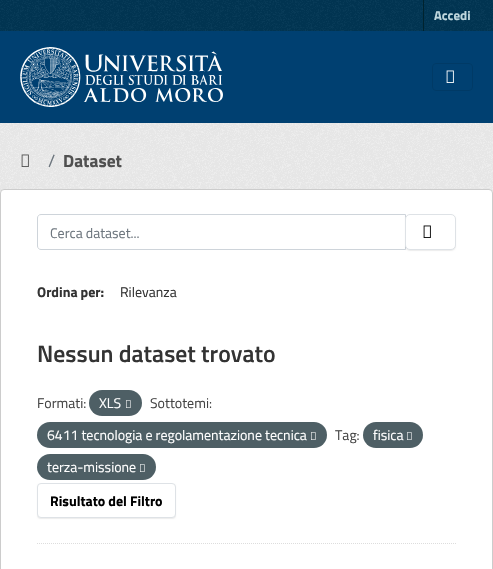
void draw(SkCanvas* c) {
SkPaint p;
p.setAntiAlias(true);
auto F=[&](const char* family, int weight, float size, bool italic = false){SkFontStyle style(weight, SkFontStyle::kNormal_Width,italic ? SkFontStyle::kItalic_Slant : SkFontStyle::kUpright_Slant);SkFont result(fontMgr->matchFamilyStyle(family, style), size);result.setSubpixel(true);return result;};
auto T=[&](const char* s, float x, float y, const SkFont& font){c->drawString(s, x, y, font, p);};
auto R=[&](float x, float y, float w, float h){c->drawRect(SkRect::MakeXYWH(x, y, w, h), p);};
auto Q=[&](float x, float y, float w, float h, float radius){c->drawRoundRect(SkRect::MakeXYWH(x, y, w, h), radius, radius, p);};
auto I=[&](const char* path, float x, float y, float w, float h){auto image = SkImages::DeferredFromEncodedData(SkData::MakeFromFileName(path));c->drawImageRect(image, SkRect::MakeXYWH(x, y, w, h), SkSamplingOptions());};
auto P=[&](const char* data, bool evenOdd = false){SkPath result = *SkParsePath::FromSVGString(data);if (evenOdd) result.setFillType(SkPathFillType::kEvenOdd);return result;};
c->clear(0xff013553);
I("1.png",0,0,493,31);
p.setColor(0xff00232e);
R(423,0,1,31);
auto f1 = F("Titillium Web",700,13);
p.setColor(0xffbfd7de);
T("Accedi",434,20,f1);
p.setColor(0xff004071);
R(0,31,493,92);
I("2.png",20,47,203,60);
p.setStroke(true);
p.setStrokeWidth(1);
p.setColor(0xff003a66);
c->drawRoundRect(SkRect::MakeXYWH(432.5,63.5,40,27),3.5,3.5,p);
I("3.png",446,70,8,13);
p.setStroke(false);
p.setColor(0xffeeeeee);
R(0,123,493,70);
I("4.png",0,123,493,70);
I("5.png",21,154,8,13);
auto f2 = F("Titillium Web",400,17.5);
p.setColor(0xff6c757d);
T("/",48,167,f2);
auto f3 = F("Titillium Web",700,17.5);
p.setColor(0xff505050);
T("Dataset",63,167,f3);
p.setColor(0xffffffff);
c->drawRoundRect(SkRect::MakeXYWH(.5,189.5,492,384),3.5,3.5,p);
p.setStroke(true);
p.setColor(0xffcccccc);
c->drawRoundRect(SkRect::MakeXYWH(.5,189.5,492,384),3.5,3.5,p);
p.setColor(0xffdddddd);
p.setPathEffect(SkDashPathEffect::Make({{1,1}}, 0));
c->drawPath(P("M37 543.5h419"),p);
p.setPathEffect(nullptr);
p.setColor(0xffced4da);
c->drawPath(P("M41 214.5h364.5v35h-364.5c-2 0-3.5-1.5-3.5-3.5v-28c0-2 1.5-3.5 3.5-3.5z"),p);
auto f4 = F("Titillium Web",400,14);
p.setStroke(false);
p.setColor(0xff6c757d);
T("Cerca dataset...",50,238,f4);
p.setColor(0x12000000);
p.setMaskFilter(SkMaskFilter::MakeBlur(kNormal_SkBlurStyle, .5));
c->drawRoundRect(SkRect::MakeXYWH(405,215,51,36),5,5,p);
p.setMaskFilter(nullptr);
p.setColor(0xffffffff);
c->drawRoundRect(SkRect::MakeXYWH(405.5,214.5,50,35),4.5,4.5,p);
p.setStroke(true);
p.setColor(0xffdee2e6);
c->drawRoundRect(SkRect::MakeXYWH(405.5,214.5,50,35),4.5,4.5,p);
I("6.png",423,225,8,13);
auto f5 = F("Titillium Web",700,14);
p.setStroke(false);
p.setColor(0xff333333);
T("Ordina per:",37,297,f5);
T("Rilevanza",120,297,f4);
auto f6 = F("Titillium Web",600,23.75);
T("Nessun dataset trovato",37,362,f6);
p.setColor(0xff444444);
T("Formati:",37,408,f4);
p.setColor(0xff4e5f65);
Q(89,390,53,26,13);
p.setColor(0xffffffff);
T("XLS",99,408,f4);
I("7.png",126,400,5,8);
p.setColor(0xff444444);
T("Sottotemi:",150,408,f4);
p.setColor(0xff4e5f65);
Q(37,422,290,26,13);
p.setColor(0xffffffff);
T("6411 tecnologia e regolamentazione tecnica",47,440,f4);
I("7.png",311,432,5,8);
p.setColor(0xff444444);
T("Tag:",335,440,f4);
p.setColor(0xff4e5f65);
Q(363,422,60,26,13);
p.setColor(0xffffffff);
T("fisica",373,440,f4);
I("7.png",407,432,5,8);
p.setColor(0xff4e5f65);
Q(37,454,119,26,13);
p.setColor(0xffffffff);
T("terza-missione",47,472,f4);
I("7.png",140,464,5,8);
p.setColor(0x12000000);
p.setMaskFilter(SkMaskFilter::MakeBlur(kNormal_SkBlurStyle, .5));
c->drawRoundRect(SkRect::MakeXYWH(37,484,139,35),4,4,p);
p.setMaskFilter(nullptr);
p.setColor(0xffffffff);
c->drawRoundRect(SkRect::MakeXYWH(37.5,483.5,138,34),3.5,3.5,p);
p.setStroke(true);
p.setColor(0xffdee2e6);
c->drawRoundRect(SkRect::MakeXYWH(37.5,483.5,138,34),3.5,3.5,p);
p.setStroke(false);
p.setColor(0xff000000);
T("Risultato del Filtro",50,506,f5);
}
